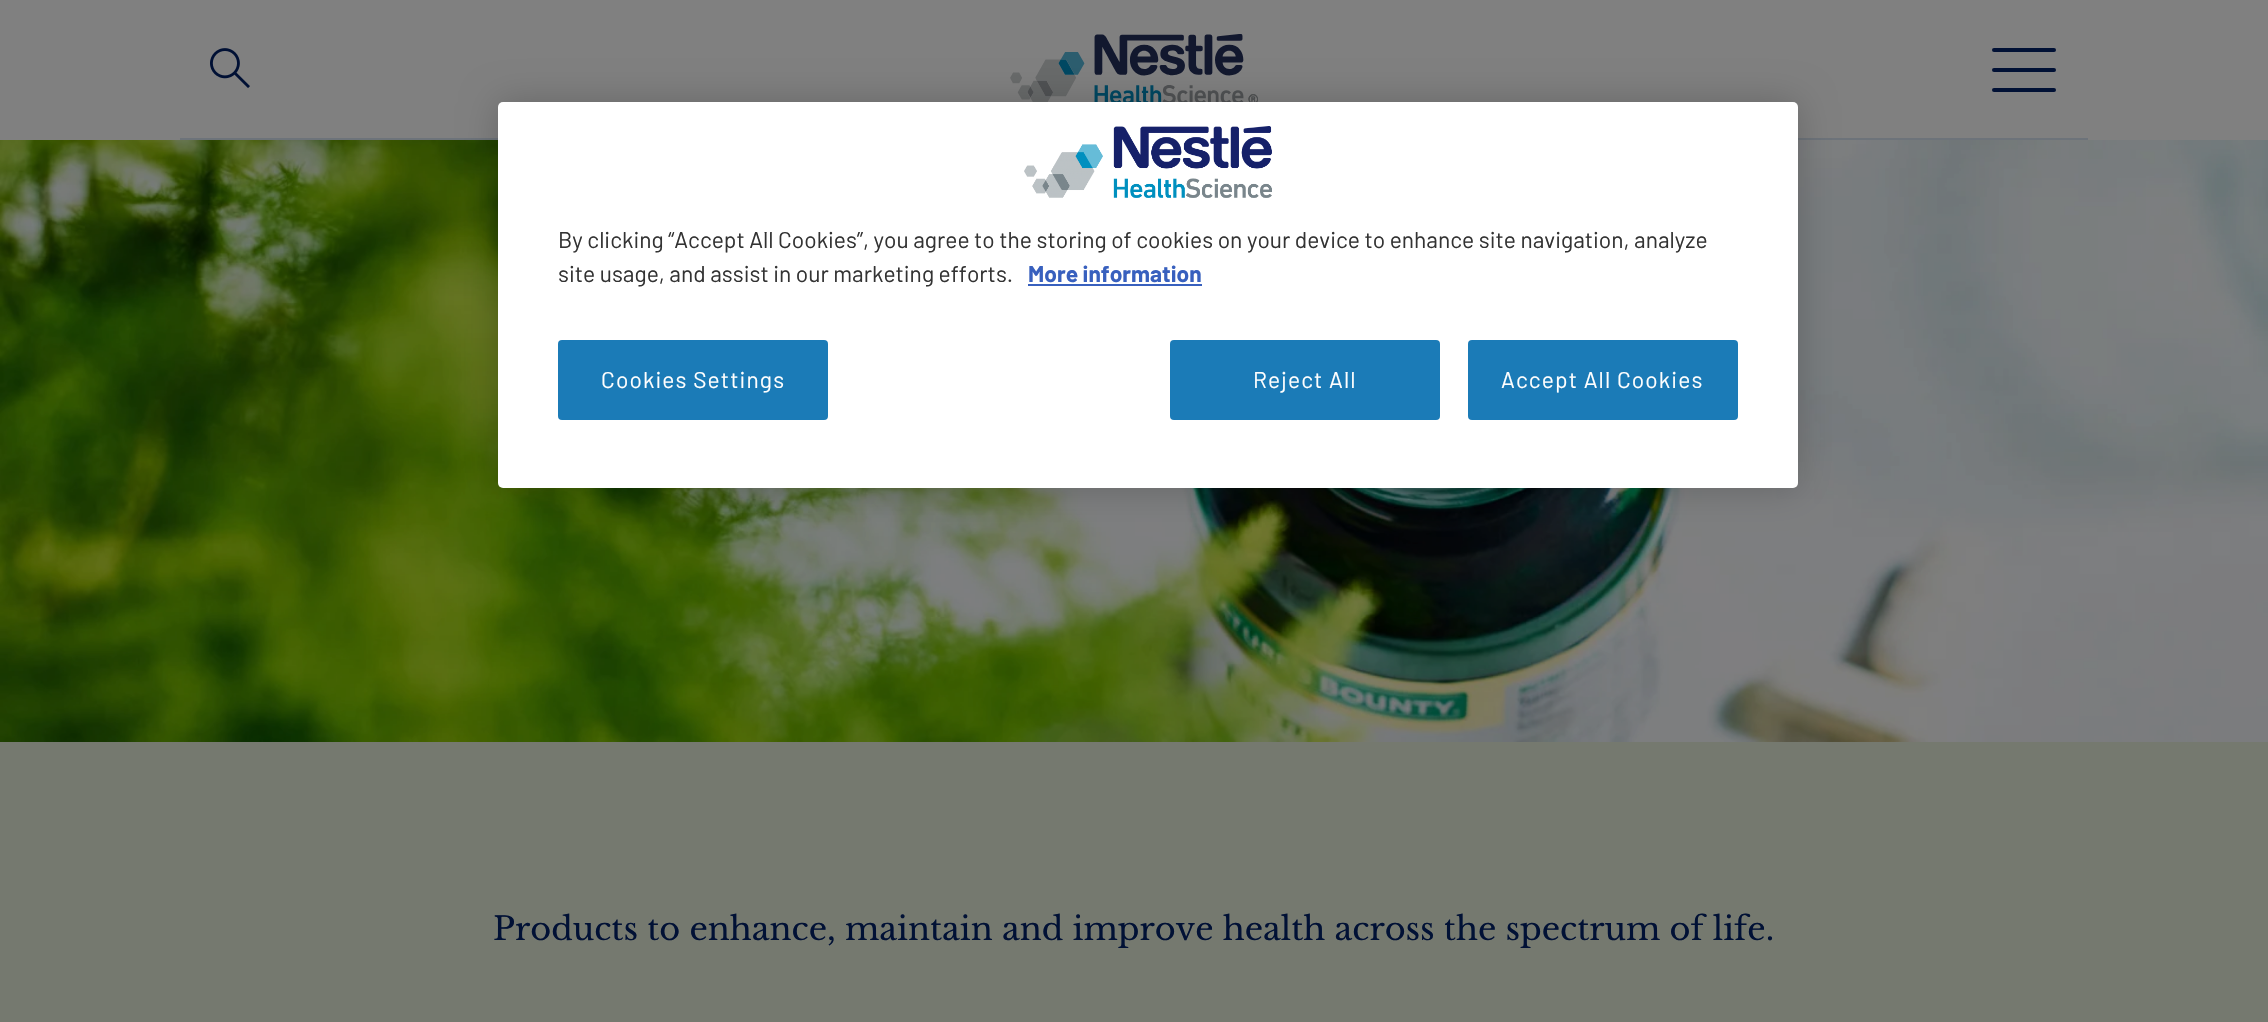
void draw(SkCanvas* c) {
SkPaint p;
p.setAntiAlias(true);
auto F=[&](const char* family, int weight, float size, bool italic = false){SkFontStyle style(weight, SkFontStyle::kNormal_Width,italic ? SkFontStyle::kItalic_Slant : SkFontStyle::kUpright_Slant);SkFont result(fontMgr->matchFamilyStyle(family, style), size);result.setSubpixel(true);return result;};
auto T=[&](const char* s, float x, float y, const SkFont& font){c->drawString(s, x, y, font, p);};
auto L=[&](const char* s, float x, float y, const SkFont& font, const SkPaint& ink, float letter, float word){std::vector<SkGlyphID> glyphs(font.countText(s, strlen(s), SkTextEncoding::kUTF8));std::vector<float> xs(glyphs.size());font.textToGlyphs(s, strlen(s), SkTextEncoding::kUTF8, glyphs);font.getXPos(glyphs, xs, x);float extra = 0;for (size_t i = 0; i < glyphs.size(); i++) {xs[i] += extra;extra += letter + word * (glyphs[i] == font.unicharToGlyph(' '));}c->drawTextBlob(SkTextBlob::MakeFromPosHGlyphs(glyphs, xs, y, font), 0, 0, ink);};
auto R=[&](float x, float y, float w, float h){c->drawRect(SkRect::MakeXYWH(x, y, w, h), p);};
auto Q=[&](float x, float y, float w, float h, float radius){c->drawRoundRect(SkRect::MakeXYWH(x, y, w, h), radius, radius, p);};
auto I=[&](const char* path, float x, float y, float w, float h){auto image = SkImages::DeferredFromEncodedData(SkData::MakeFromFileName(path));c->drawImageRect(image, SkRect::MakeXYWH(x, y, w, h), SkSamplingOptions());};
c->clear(0xffffffff);
p.setColor(0xff808080);
R(0,0,2268,140);
p.setColor(0xff6d737a);
R(180,138,1908,2);
I("3.png",1010,34,248,68);
I("4.png",0,140,2268,602);
p.setColor(0x33000000);
p.setMaskFilter(SkMaskFilter::MakeBlur(kNormal_SkBlurStyle, 18));
c->drawRoundRect(SkRect::MakeXYWH(498,102,1300,386),5,5,p);
p.setMaskFilter(nullptr);
p.setColor(0xffffffff);
Q(498,102,1300,386,5);
I("1.png",1024,126,248,72);
auto f1 = F("Barlow",400,22.75);
p.setColor(0xff333333);
T("By clicking “Accept All Cookies”, you agree to the storing of cookies on your device to enhance site navigation, analyze",558,248,f1);
T("site usage, and assist in our marketing efforts.",558,282,f1);
auto f2 = F("Barlow",700,22.75);
p.setColor(0xff3860be);
T("More information",1028,282,f2);
R(1028,284,174,2);
p.setColor(0xff1b7bb7);
Q(558,340,270,80,4);
p.setColor(0xffffffff);
L("Cookies Settings",601,388,f1,p,1.1,0);
p.setColor(0xff1b7bb7);
Q(1170,340,270,80,4);
p.setColor(0xffffffff);
L("Reject All",1253,388,f1,p,1.1,0);
p.setColor(0xff1b7bb7);
Q(1468,340,270,80,4);
p.setColor(0xffffffff);
L("Accept All Cookies",1501,388,f1,p,1.1,0);
I("2.png",210,48,40,40);
p.setColor(0xff011135);
Q(1992,48,64,4,2);
Q(1992,68,64,4,2);
Q(1992,88,64,4,2);
p.setColor(0xff75796f);
R(0,742,2268,280);
auto f3 = F("Libre Baskerville",400,32);
p.setColor(0xff011135);
T("Products to enhance, maintain and improve health across the spectrum of life.",493,940,f3);
}
